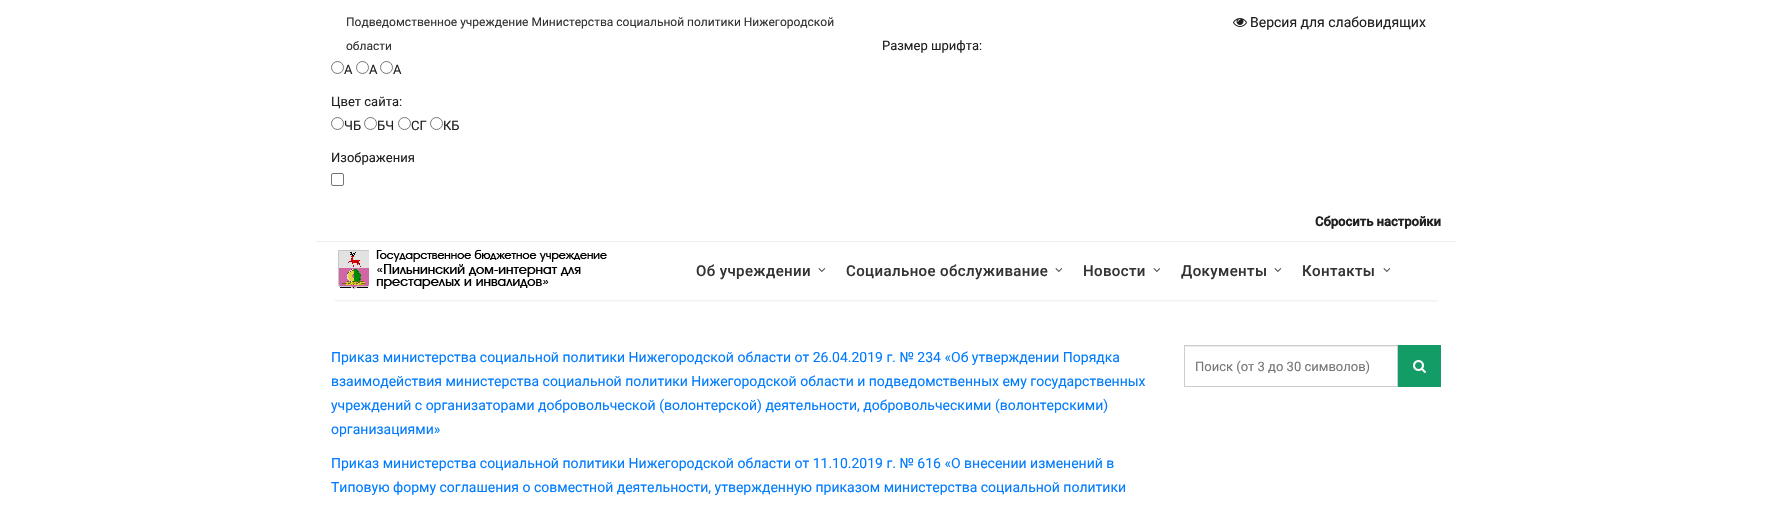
void draw(SkCanvas* c) {
SkPaint p;
p.setAntiAlias(true);
auto F=[&](const char* family, int weight, float size, bool italic = false){SkFontStyle style(weight, SkFontStyle::kNormal_Width,italic ? SkFontStyle::kItalic_Slant : SkFontStyle::kUpright_Slant);SkFont result(fontMgr->matchFamilyStyle(family, style), size);result.setSubpixel(true);return result;};
auto T=[&](const char* s, float x, float y, const SkFont& font){c->drawString(s, x, y, font, p);};
auto L=[&](const char* s, float x, float y, const SkFont& font, const SkPaint& ink, float letter, float word){std::vector<SkGlyphID> glyphs(font.countText(s, strlen(s), SkTextEncoding::kUTF8));std::vector<float> xs(glyphs.size());font.textToGlyphs(s, strlen(s), SkTextEncoding::kUTF8, glyphs);font.getXPos(glyphs, xs, x);float extra = 0;for (size_t i = 0; i < glyphs.size(); i++) {xs[i] += extra;extra += letter + word * (glyphs[i] == font.unicharToGlyph(' '));}c->drawTextBlob(SkTextBlob::MakeFromPosHGlyphs(glyphs, xs, y, font), 0, 0, ink);};
auto R=[&](float x, float y, float w, float h){c->drawRect(SkRect::MakeXYWH(x, y, w, h), p);};
auto I=[&](const char* path, float x, float y, float w, float h){auto image = SkImages::DeferredFromEncodedData(SkData::MakeFromFileName(path));c->drawImageRect(image, SkRect::MakeXYWH(x, y, w, h), SkSamplingOptions());};
c->clear(0xffffffff);
p.setColor(0xffeeeeee);
R(316,241,1140,1);
auto f1 = F("Roboto",400,12);
p.setColor(0xff333333);
T("Подведомственное учреждение Министерства социальной политики Нижегородской",346,26,f1);
T("области",346,50,f1);
I("1.png",1233,18,14,9);
auto f2 = F("Roboto",400,14);
p.setColor(0xff202020);
T("Версия для слабовидящих",1250,27,f2);
auto f3 = F("Roboto",400,13);
T("Размер шрифта:",882,50,f3);
p.setStroke(true);
p.setStrokeWidth(1);
p.setColor(0xff767676);
c->drawCircle(337.5,67.5,6,p);
p.setStroke(false);
p.setColor(0xff202020);
T("A",344,74,f3);
p.setStroke(true);
p.setColor(0xff767676);
c->drawCircle(362.5,67.5,6,p);
p.setStroke(false);
p.setColor(0xff202020);
T("A",369,74,f3);
p.setStroke(true);
p.setColor(0xff767676);
c->drawCircle(386.5,67.5,6,p);
p.setStroke(false);
p.setColor(0xff202020);
T("A",393,74,f3);
T("Цвет сайта:",331,106,f3);
p.setStroke(true);
p.setColor(0xff767676);
c->drawCircle(337.5,123.5,6,p);
p.setStroke(false);
p.setColor(0xff202020);
T("ЧБ",344,130,f3);
p.setStroke(true);
p.setColor(0xff767676);
c->drawCircle(370.5,123.5,6,p);
p.setStroke(false);
p.setColor(0xff202020);
T("БЧ",377,130,f3);
p.setStroke(true);
p.setColor(0xff767676);
c->drawCircle(404.5,123.5,6,p);
p.setStroke(false);
p.setColor(0xff202020);
T("СГ",411,130,f3);
p.setStroke(true);
p.setColor(0xff767676);
c->drawCircle(436.5,123.5,6,p);
p.setStroke(false);
p.setColor(0xff202020);
T("КБ",443,130,f3);
T("Изображения",331,162,f3);
p.setStroke(true);
p.setColor(0xff767676);
c->drawRoundRect(SkRect::MakeXYWH(331.5,173.5,12,12),1.5,1.5,p);
auto f4 = F("Roboto",700,13);
p.setStroke(false);
p.setColor(0xff202020);
T("Сбросить настройки",1315,226,f4);
c->save();
c->clipRect(SkRect::MakeXYWH(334,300,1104,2));
p.setColor(0x33000000);
p.setMaskFilter(SkMaskFilter::MakeBlur(kNormal_SkBlurStyle, 2));
c->drawRect(SkRect::MakeXYWH(334,254,1104,45),p);
p.setMaskFilter(nullptr);
c->restore();
I("2.png",338,250,269,39);
auto f5 = F("Roboto",500,15);
p.setColor(0xff333333);
L("Об учреждении",696,276,f5,p,.4,0);
I("3.png",818,268,8,4);
L("Социальное обслуживание",846,276,f5,p,.4,0);
I("3.png",1055,268,8,4);
L("Новости",1083,276,f5,p,.4,0);
I("3.png",1153,268,8,4);
L("Документы",1181,276,f5,p,.4,0);
I("3.png",1274,268,8,4);
L("Контакты",1302,276,f5,p,.4,0);
I("3.png",1383,268,8,4);
p.setColor(0xff007bff);
T("Приказ министерства социальной политики Нижегородской области от 26.04.2019 г. № 234 «Об утверждении Порядка",331,362,f2);
T("взаимодействия министерства социальной политики Нижегородской области и подведомственных ему государственных",331,386,f2);
T("учреждений с организаторами добровольческой (волонтерской) деятельности, добровольческими (волонтерскими)",331,410,f2);
T("организациями»",331,434,f2);
T("Приказ министерства социальной политики Нижегородской области от 11.10.2019 г. № 616 «О внесении изменений в",331,468,f2);
T("Типовую форму соглашения о совместной деятельности, утвержденную приказом министерства социальной политики",331,492,f2);
p.setColor(0xffececec);
R(1185,346,212,1);
p.setStroke(true);
p.setColor(0xffcccccc);
c->drawRect(SkRect::MakeXYWH(1184.5,345.5,213,41),p);
p.setStroke(false);
p.setColor(0xff757575);
T("Поиск (от 3 до 30 символов)",1195,371,f3);
p.setColor(0xff149c66);
R(1398,345,43,42);
I("4.png",1413,360,13,13);
}
